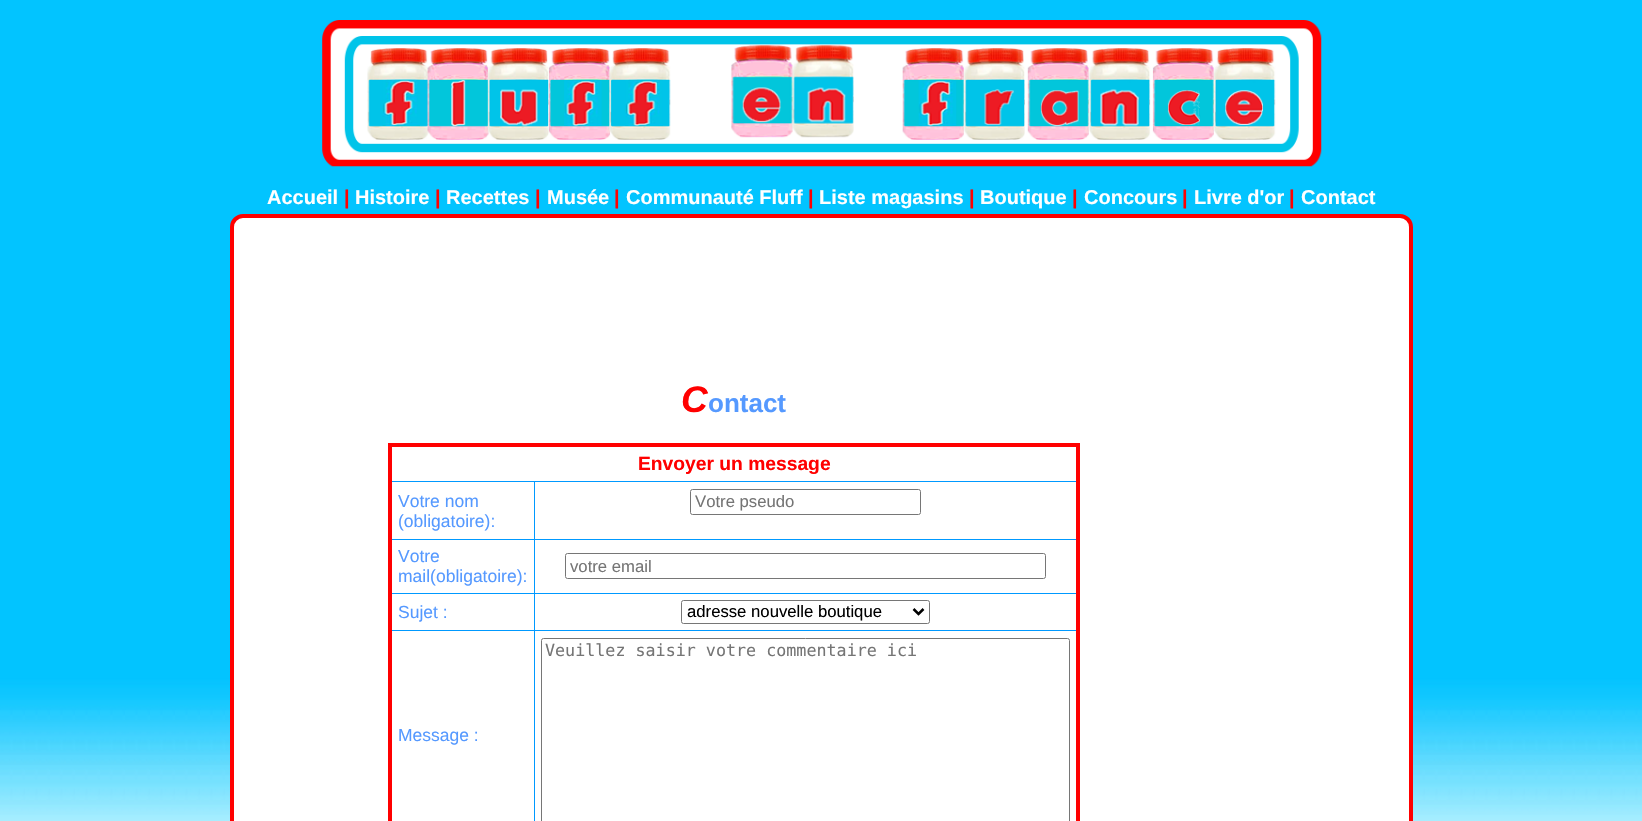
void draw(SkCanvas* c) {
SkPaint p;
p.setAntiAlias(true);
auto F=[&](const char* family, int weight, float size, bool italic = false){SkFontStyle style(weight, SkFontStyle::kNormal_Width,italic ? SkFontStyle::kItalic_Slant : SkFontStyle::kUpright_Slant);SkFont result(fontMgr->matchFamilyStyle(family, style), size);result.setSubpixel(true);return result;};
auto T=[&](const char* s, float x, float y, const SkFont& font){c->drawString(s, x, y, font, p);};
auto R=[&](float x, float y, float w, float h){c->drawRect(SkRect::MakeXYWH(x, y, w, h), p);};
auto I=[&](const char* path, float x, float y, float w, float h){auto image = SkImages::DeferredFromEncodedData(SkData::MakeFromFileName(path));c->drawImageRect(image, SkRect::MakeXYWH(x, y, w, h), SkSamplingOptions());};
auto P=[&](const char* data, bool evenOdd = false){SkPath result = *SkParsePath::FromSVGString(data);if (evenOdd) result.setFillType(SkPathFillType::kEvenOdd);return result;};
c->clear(0xffffffff);
I("1.png",0,0,1642,821);
I("2.png",322,20,1000,147);
auto f1 = F("Liberation Sans",700,20);
p.setColor(0xffffffff);
T("Accueil",267,204,f1);
p.setColor(0xffff0000);
T("|",344,204,f1);
p.setColor(0xffffffff);
T("Histoire",355,204,f1);
p.setColor(0xffff0000);
T("|",435,204,f1);
p.setColor(0xffffffff);
T("Recettes",446,204,f1);
p.setColor(0xffff0000);
T("|",535,204,f1);
p.setColor(0xffffffff);
T("Musée",547,204,f1);
p.setColor(0xffff0000);
T("|",614,204,f1);
p.setColor(0xffffffff);
T("Communauté Fluff",626,204,f1);
p.setColor(0xffff0000);
T("|",808,204,f1);
p.setColor(0xffffffff);
T("Liste magasins",819,204,f1);
p.setColor(0xffff0000);
T("|",969,204,f1);
p.setColor(0xffffffff);
T("Boutique",980,204,f1);
p.setColor(0xffff0000);
T("|",1072,204,f1);
p.setColor(0xffffffff);
T("Concours",1084,204,f1);
p.setColor(0xffff0000);
T("|",1182,204,f1);
p.setColor(0xffffffff);
T("Livre d'or",1194,204,f1);
p.setColor(0xffff0000);
T("|",1289,204,f1);
p.setColor(0xffffffff);
T("Contact",1301,204,f1);
c->drawRoundRect(SkRect::MakeXYWH(232,216,1179,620),11,11,p);
p.setStroke(true);
p.setStrokeWidth(4);
p.setColor(0xffff0000);
c->drawRoundRect(SkRect::MakeXYWH(232,216,1179,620),11,11,p);
auto f2 = F("Liberation Sans",700,37,true);
p.setStroke(false);
T("C",681,412,f2);
auto f3 = F("Liberation Sans",700,26);
p.setColor(0xff5599ff);
T("ontact",708,412,f3);
p.setColor(0xffff0000);
R(388,443,692,4);
p.setColor(0xff0099ff);
R(534,481,545,1);
R(534,539,545,1);
R(534,593,545,1);
R(534,630,545,1);
p.setColor(0xffff0000);
R(1076,443,4,378);
p.setColor(0xff0099ff);
R(534,630,1,191);
R(389,630,146,1);
R(534,593,1,38);
R(389,593,146,1);
R(534,539,1,55);
R(389,539,146,1);
R(534,481,1,59);
R(389,481,146,1);
p.setColor(0xffff0000);
R(388,443,4,378);
auto f4 = F("Liberation Sans",700,19.25);
T("Envoyer un message",638,470,f4);
auto f5 = F("Liberation Sans",400,17.5);
p.setColor(0xff5599ff);
T("Votre nom",398,507,f5);
T("(obligatoire):",398,527,f5);
p.setStroke(true);
p.setStrokeWidth(1);
p.setColor(0xff767676);
c->drawRoundRect(SkRect::MakeXYWH(690.5,489.5,230,25),2,2,p);
auto f6 = F("Liberation Sans",400,16.7);
p.setStroke(false);
p.setColor(0xff757575);
T("Votre pseudo",695,507,f6);
p.setColor(0xff5599ff);
T("Votre",398,562,f5);
T("mail(obligatoire):",398,582,f5);
p.setStroke(true);
p.setColor(0xff767676);
c->drawRoundRect(SkRect::MakeXYWH(565.5,553.5,480,25),2,2,p);
p.setStroke(false);
p.setColor(0xff757575);
T("votre email",570,572,f6);
p.setColor(0xff5599ff);
T("Sujet :",398,618,f5);
p.setStroke(true);
p.setColor(0xff767676);
c->drawRoundRect(SkRect::MakeXYWH(681.5,600.5,248,23),2,2,p);
p.setStrokeWidth(2.5);
p.setColor(0xff000000);
c->drawPath(P("M913.5 609l5 5l5-5"),p);
p.setStroke(false);
T("adresse nouvelle boutique",687,617,f6);
p.setStroke(true);
p.setStrokeWidth(1);
p.setColor(0xff767676);
c->drawRoundRect(SkRect::MakeXYWH(541.5,638.5,528,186),2,2,p);
auto f7 = F("DejaVu Sans Mono",400,16.7);
p.setStroke(false);
p.setColor(0xff757575);
T("Veuillez saisir votre commentaire ici",545,656,f7);
p.setColor(0xff5599ff);
T("Message :",398,741,f5);
}
